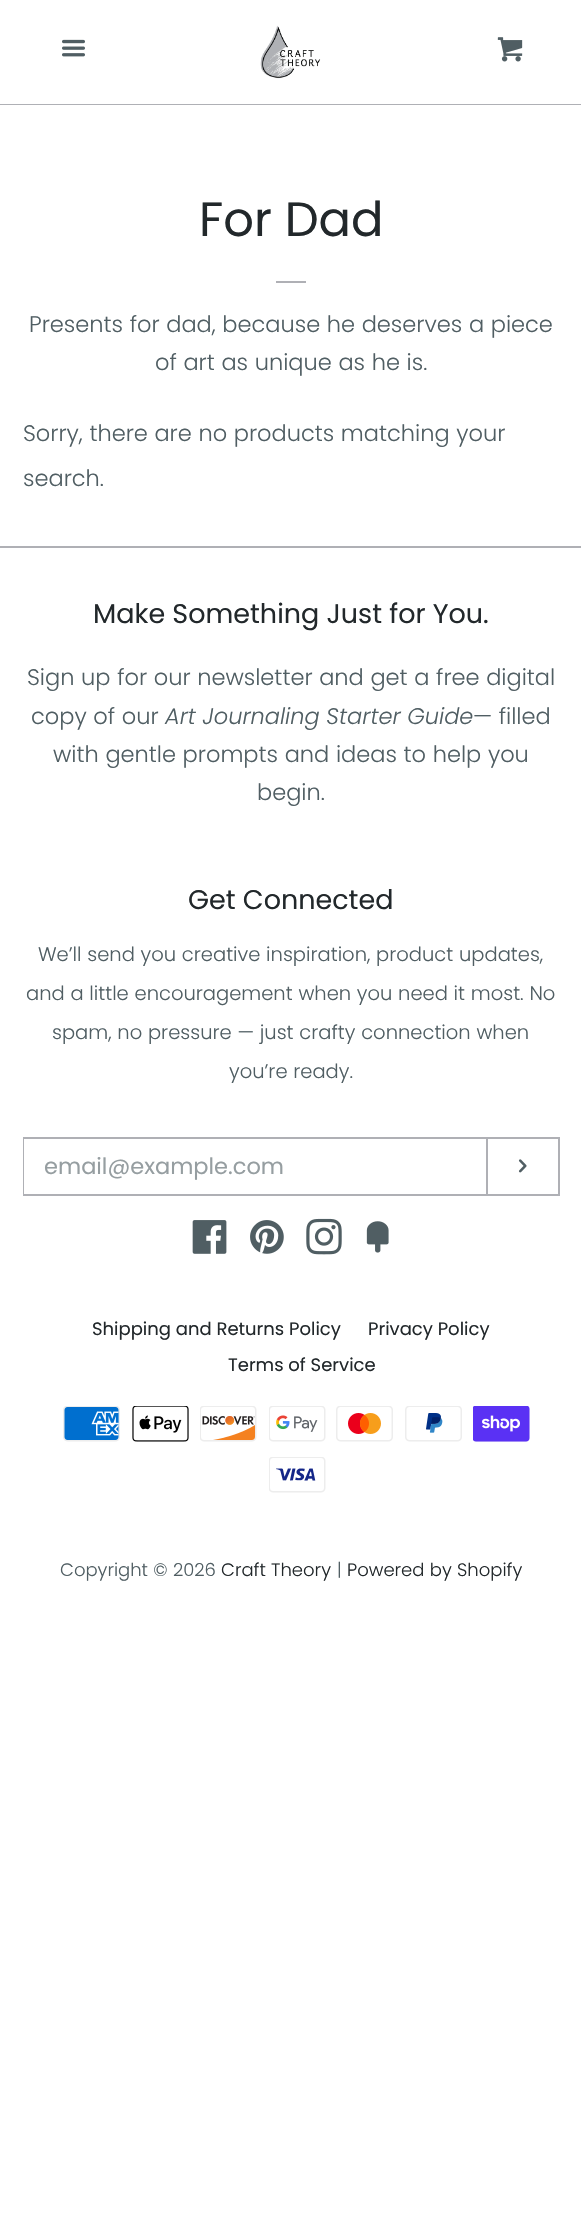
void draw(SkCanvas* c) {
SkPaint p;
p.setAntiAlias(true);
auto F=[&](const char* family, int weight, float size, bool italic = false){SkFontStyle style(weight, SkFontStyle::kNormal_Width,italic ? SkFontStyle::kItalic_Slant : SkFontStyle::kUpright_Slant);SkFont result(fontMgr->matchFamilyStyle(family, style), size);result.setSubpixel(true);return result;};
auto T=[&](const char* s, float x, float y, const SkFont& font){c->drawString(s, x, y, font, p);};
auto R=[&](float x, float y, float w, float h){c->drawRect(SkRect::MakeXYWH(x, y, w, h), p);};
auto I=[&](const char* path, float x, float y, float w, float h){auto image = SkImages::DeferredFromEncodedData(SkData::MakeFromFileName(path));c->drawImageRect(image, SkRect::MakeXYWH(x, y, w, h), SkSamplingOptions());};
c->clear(0xffffffff);
p.setColor(0xffafb0b5);
R(0,104,581,1);
I("1.png",62,39,23,18);
I("2.png",260,25,61,54);
I("3.png",497,37,26,25);
auto f1 = F("Poppins",400,48);
p.setColor(0xff22282b);
T("For Dad",199,236,f1);
p.setColor(0xffafb0b5);
R(276,281,30,2);
auto f2 = F("Poppins",300,22.5);
p.setColor(0xff505e63);
T("Presents for dad, because he deserves a piece",29,332,f2);
T("of art as unique as he is.",155,370,f2);
T("Sorry, there are no products matching your",23,441,f2);
T("search.",23,486,f2);
p.setColor(0xffafb0b5);
R(0,546,581,2);
auto f3 = F("Poppins",400,27);
p.setColor(0xff22282b);
T("Make Something Just for You.",93,623,f3);
p.setColor(0xff505e63);
T("Sign up for our newsletter and get a free digital",27,685,f2);
T("copy of our",31,724,f2);
auto f4 = F("Poppins",300,22.5,true);
T("Art Journaling Starter Guide",165,724,f4);
T("— filled",473,724,f2);
T("with gentle prompts and ideas to help you",53,762,f2);
T("begin.",257,800,f2);
p.setColor(0xff22282b);
T("Get Connected",188,909,f3);
auto f5 = F("Poppins",300,19.5);
p.setColor(0xff505e63);
T("We’ll send you creative inspiration, product updates,",38,961,f5);
T("and a little encouragement when you need it most. No",26,1000,f5);
T("spam, no pressure — just crafty connection when",52,1039,f5);
T("you’re ready.",229,1078,f5);
p.setStroke(true);
p.setStrokeWidth(2);
p.setColor(0xffafb0b5);
c->drawRect(SkRect::MakeXYWH(24,1138,535,57),p);
p.setStroke(false);
p.setColor(0xffffffff);
R(24,1139,1,55);
p.setColor(0xffafb0b5);
R(486,1139,2,55);
auto f6 = F("Poppins",400,22.5);
p.setColor(0xff969ea1);
T("email@example.com",44,1174,f6);
I("4.png",518,1159,9,14);
I("5.png",192,1220,35,34);
I("6.png",250,1220,34,34);
I("7.png",306,1218,36,37);
I("8.png",366,1221,23,32);
auto f7 = F("Poppins",400,18);
p.setColor(0xff22282b);
T("Shipping and Returns Policy",92,1335,f7);
T("Privacy Policy",368,1335,f7);
T("Terms of Service",228,1371,f7);
I("9.png",63,1406,57,36);
I("10.png",132,1406,57,36);
I("11.png",200,1406,57,36);
I("12.png",269,1406,57,36);
I("13.png",336,1406,57,36);
I("14.png",405,1406,57,36);
I("15.png",473,1406,57,36);
I("16.png",269,1457,57,36);
auto f8 = F("Poppins",300,18);
p.setColor(0xff505e63);
T("Copyright © 2026",60,1576,f8);
p.setColor(0xff22282b);
T("Craft Theory",221,1576,f8);
p.setColor(0xff505e63);
T("|",337,1576,f8);
p.setColor(0xff22282b);
T("Powered by Shopify",347,1576,f8);
}
